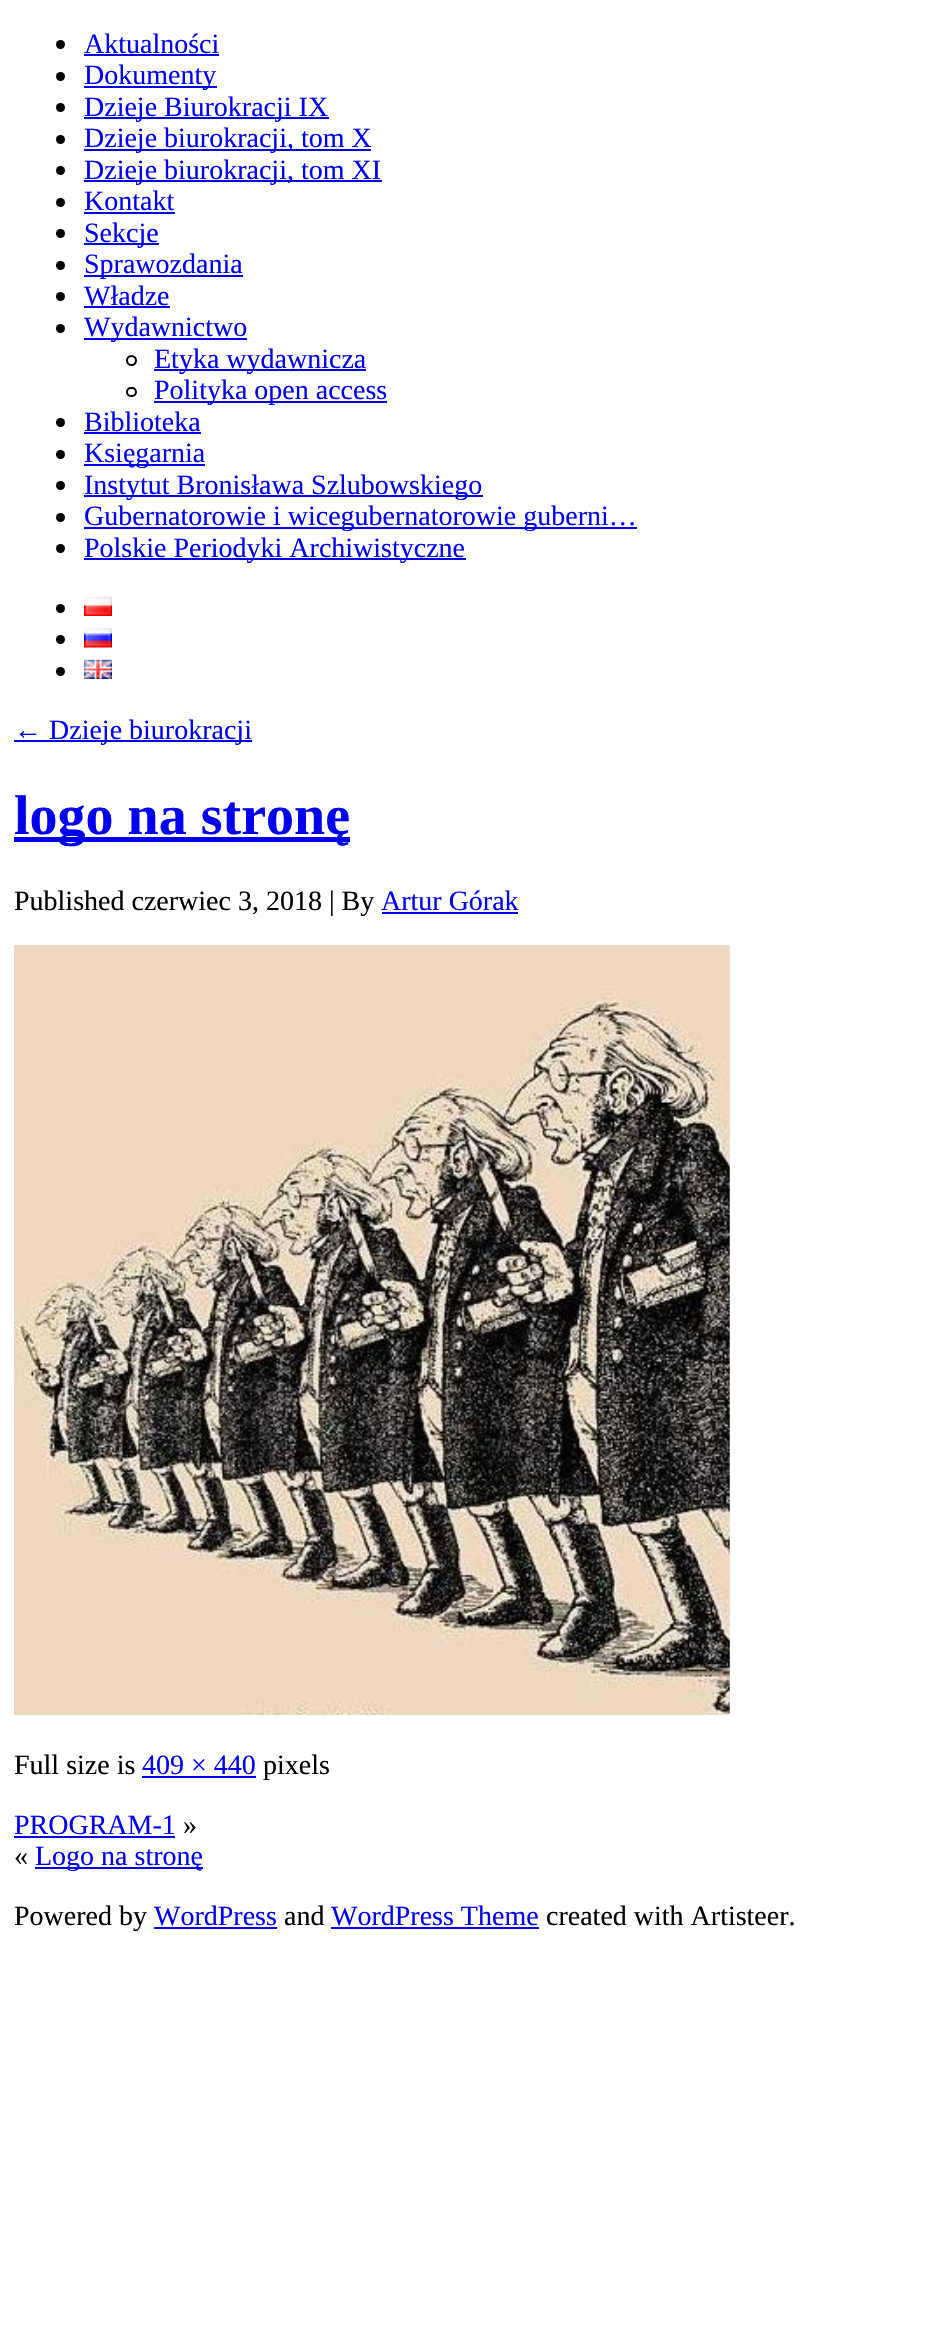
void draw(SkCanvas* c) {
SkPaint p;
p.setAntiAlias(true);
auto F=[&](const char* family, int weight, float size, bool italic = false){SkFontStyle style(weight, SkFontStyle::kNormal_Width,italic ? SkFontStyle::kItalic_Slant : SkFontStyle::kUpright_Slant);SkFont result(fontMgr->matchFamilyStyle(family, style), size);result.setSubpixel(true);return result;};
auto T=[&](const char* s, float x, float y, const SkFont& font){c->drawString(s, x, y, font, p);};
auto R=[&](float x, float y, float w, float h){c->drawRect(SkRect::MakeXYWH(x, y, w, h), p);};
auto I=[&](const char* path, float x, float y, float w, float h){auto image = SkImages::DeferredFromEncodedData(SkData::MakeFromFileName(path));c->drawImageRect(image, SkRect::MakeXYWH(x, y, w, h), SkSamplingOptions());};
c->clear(0xffffffff);
p.setColor(0xff000000);
c->drawCircle(60.5,44.5,4.5,p);
auto f1 = F("Liberation Serif",400,28);
p.setColor(0xff0000ee);
T("Aktualności",84,53,f1);
R(84,54,135,2);
p.setColor(0xff000000);
c->drawCircle(60.5,76.5,4.5,p);
p.setColor(0xff0000ee);
R(84,86,133,2);
T("Dokumenty",84,84,f1);
p.setColor(0xff000000);
c->drawCircle(60.5,107.5,4.5,p);
p.setColor(0xff0000ee);
R(84,117,245,2);
T("Dzieje Biurokracji IX",84,116,f1);
p.setColor(0xff000000);
c->drawCircle(60.5,139.5,4.5,p);
p.setColor(0xff0000ee);
R(84,149,287,2);
T("Dzieje biurokracji, tom X",84,147,f1);
p.setColor(0xff000000);
c->drawCircle(60.5,170.5,4.5,p);
p.setColor(0xff0000ee);
R(84,180,298,2);
T("Dzieje biurokracji, tom XI",84,179,f1);
p.setColor(0xff000000);
c->drawCircle(60.5,202.5,4.5,p);
p.setColor(0xff0000ee);
T("Kontakt",84,210,f1);
R(84,212,91,2);
p.setColor(0xff000000);
c->drawCircle(60.5,233.5,4.5,p);
p.setColor(0xff0000ee);
R(84,243,75,2);
T("Sekcje",84,242,f1);
p.setColor(0xff000000);
c->drawCircle(60.5,265.5,4.5,p);
p.setColor(0xff0000ee);
R(84,275,159,2);
T("Sprawozdania",84,273,f1);
p.setColor(0xff000000);
c->drawCircle(60.5,296.5,4.5,p);
p.setColor(0xff0000ee);
T("Władze",84,305,f1);
R(84,306,86,2);
p.setColor(0xff000000);
c->drawCircle(60.5,328.5,4.5,p);
p.setColor(0xff0000ee);
R(84,338,163,2);
T("Wydawnictwo",84,336,f1);
p.setStroke(true);
p.setStrokeWidth(2);
p.setColor(0xff000000);
c->drawCircle(131.5,360.5,4.5,p);
p.setStroke(false);
p.setColor(0xff0000ee);
R(154,369,212,2);
T("Etyka wydawnicza",154,368,f1);
p.setStroke(true);
p.setColor(0xff000000);
c->drawRoundRect(SkRect::MakeXYWH(127,388,9,8),4,4,p);
p.setStroke(false);
p.setColor(0xff0000ee);
R(154,401,233,2);
T("Polityka open access",154,399,f1);
p.setColor(0xff000000);
c->drawCircle(60.5,422.5,4.5,p);
p.setColor(0xff0000ee);
T("Biblioteka",84,431,f1);
R(84,432,117,2);
p.setColor(0xff000000);
c->drawCircle(60.5,454.5,4.5,p);
p.setColor(0xff0000ee);
R(84,464,121,2);
T("Księgarnia",84,462,f1);
p.setColor(0xff000000);
c->drawCircle(60.5,485.5,4.5,p);
p.setColor(0xff0000ee);
R(84,495,399,2);
T("Instytut Bronisława Szlubowskiego",84,494,f1);
p.setColor(0xff000000);
c->drawCircle(60.5,517.5,4.5,p);
p.setColor(0xff0000ee);
R(84,527,553,2);
T("Gubernatorowie i wicegubernatorowie guberni…",84,525,f1);
p.setColor(0xff000000);
c->drawCircle(60.5,548.5,4.5,p);
p.setColor(0xff0000ee);
R(84,558,382,2);
T("Polskie Periodyki Archiwistyczne",84,557,f1);
p.setColor(0xff000000);
c->drawCircle(60.5,608.5,4.5,p);
I("1.png",84,596,28,20);
c->drawCircle(60.5,639.5,4.5,p);
I("2.png",84,628,28,20);
c->drawCircle(60.5,671.5,4.5,p);
I("3.png",84,659,28,20);
p.setColor(0xff0000ee);
R(14,740,238,2);
T("← Dzieje biurokracji",14,739,f1);
R(14,837,336,5);
auto f2 = F("Liberation Serif",700,56);
T("logo na stronę",14,834,f2);
p.setColor(0xff000000);
T("Published czerwiec 3, 2018 | By",14,910,f1);
p.setColor(0xff0000ee);
T("Artur Górak",381,910,f1);
R(382,912,136,2);
I("4.png",14,945,716,770);
p.setColor(0xff000000);
T("Full size is",14,1774,f1);
p.setColor(0xff0000ee);
T("409 × 440",142,1774,f1);
R(142,1776,114,2);
p.setColor(0xff000000);
T("pixels",263,1774,f1);
p.setColor(0xff0000ee);
T("PROGRAM-1",14,1834,f1);
R(14,1836,161,2);
p.setColor(0xff000000);
T("»",183,1834,f1);
T("«",14,1865,f1);
p.setColor(0xff0000ee);
R(35,1867,168,2);
T("Logo na stronę",35,1865,f1);
p.setColor(0xff000000);
T("Powered by",14,1925,f1);
p.setColor(0xff0000ee);
T("WordPress",154,1925,f1);
R(154,1927,123,2);
p.setColor(0xff000000);
T("and",284,1925,f1);
p.setColor(0xff0000ee);
T("WordPress Theme",331,1925,f1);
R(331,1927,208,2);
p.setColor(0xff000000);
T("created with Artisteer.",546,1925,f1);
}
